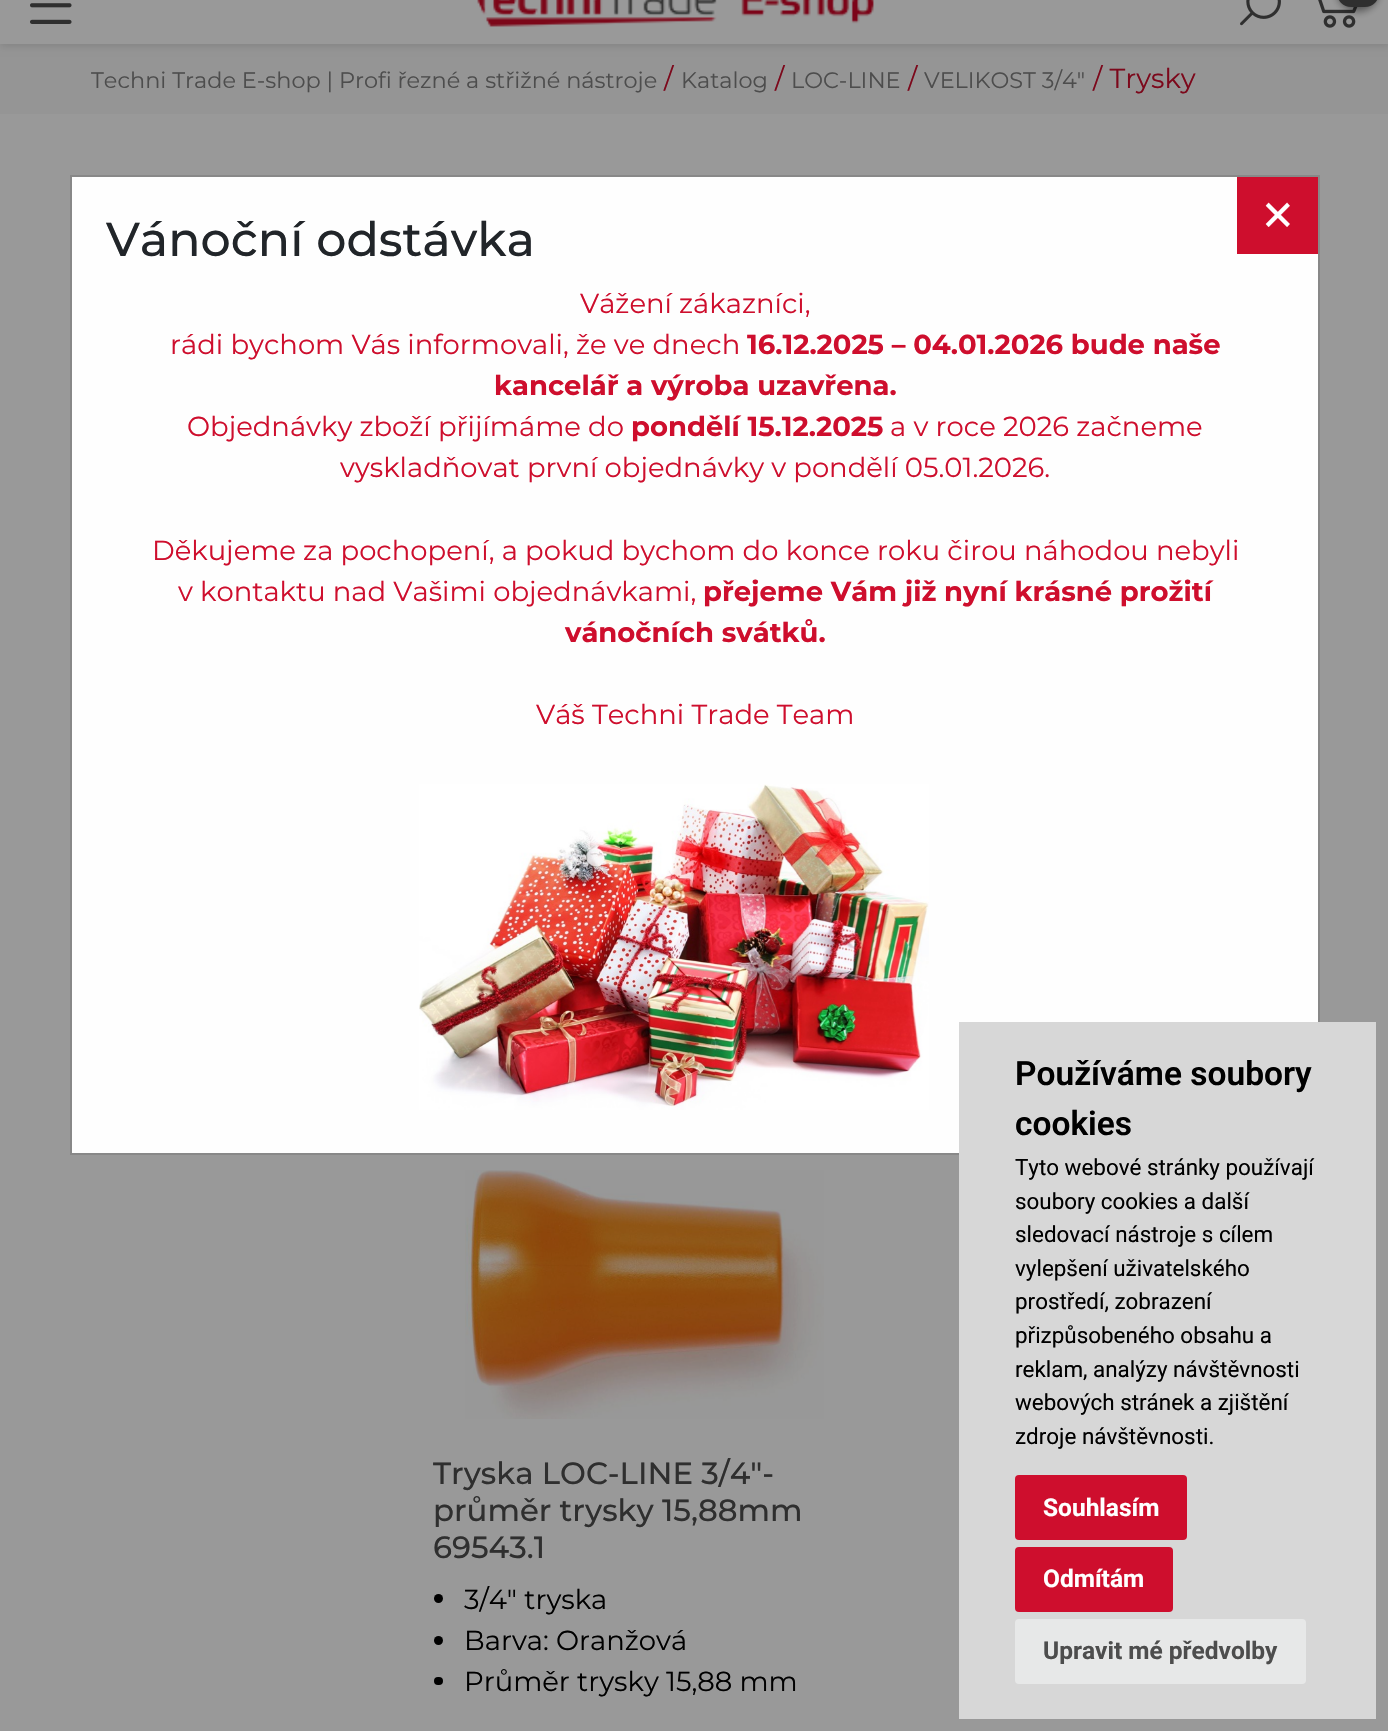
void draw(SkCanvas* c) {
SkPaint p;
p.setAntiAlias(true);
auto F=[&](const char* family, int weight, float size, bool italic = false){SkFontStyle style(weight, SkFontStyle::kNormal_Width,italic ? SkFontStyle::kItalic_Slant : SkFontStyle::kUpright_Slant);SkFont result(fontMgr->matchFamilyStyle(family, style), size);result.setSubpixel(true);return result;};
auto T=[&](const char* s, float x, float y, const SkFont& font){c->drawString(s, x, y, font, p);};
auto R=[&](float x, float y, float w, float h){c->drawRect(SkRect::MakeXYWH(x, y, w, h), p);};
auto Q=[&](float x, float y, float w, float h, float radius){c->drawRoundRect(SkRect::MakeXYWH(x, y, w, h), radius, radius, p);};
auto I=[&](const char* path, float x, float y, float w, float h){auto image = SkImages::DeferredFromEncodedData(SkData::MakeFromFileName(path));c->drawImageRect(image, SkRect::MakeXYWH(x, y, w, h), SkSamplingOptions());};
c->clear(0xff999999);
p.setColor(0xff959595);
R(0,44,1388,70);
p.setColor(0x1a010101);
p.setMaskFilter(SkMaskFilter::MakeBlur(kNormal_SkBlurStyle, 3.5));
c->drawRect(SkRect::MakeXYWH(0,-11,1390,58),p);
p.setMaskFilter(nullptr);
p.setColor(0xff999999);
R(0,0,1388,44);
I("1.png",30,3,42,21);
I("2.png",477,0,397,27);
I("3.png",1240,0,41,26);
I("4.png",1318,0,40,28);
p.setColor(0x80010101);
p.setMaskFilter(SkMaskFilter::MakeBlur(kNormal_SkBlurStyle, 4.5));
c->drawRoundRect(SkRect::MakeXYWH(1337,-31,42,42),21,21,p);
p.setMaskFilter(nullptr);
p.setColor(0xff2f2f2f);
Q(1337,-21,42,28,21);
auto f1 = F("Montserrat",400,22.4);
p.setColor(0xff4d4d4d);
T("Techni Trade E-shop | Profi řezné a střižné nástroje",91,88,f1);
auto f2 = F("Montserrat",400,27.45);
p.setColor(0xff7c081b);
T("/",664,88,f2);
p.setColor(0xff4d4d4d);
T("Katalog",681,88,f1);
p.setColor(0xff7c081b);
T("/",775,88,f2);
p.setColor(0xff4d4d4d);
T("LOC-LINE",791,88,f1);
p.setColor(0xff7c081b);
T("/",908,88,f2);
p.setColor(0xff4d4d4d);
T("VELIKOST 3/4\"",924,88,f1);
p.setColor(0xff7c081b);
T("/ Trysky",1093,88,f2);
p.setColor(0xfffefefe);
c->drawRect(SkRect::MakeXYWH(71,176,1248,978),p);
p.setStroke(true);
p.setStrokeWidth(2);
p.setColor(0xff888888);
c->drawRect(SkRect::MakeXYWH(71,176,1248,978),p);
p.setStroke(false);
p.setColor(0xffce0e2d);
R(1237,177,81,77);
auto f3 = F("Montserrat",400,69);
p.setColor(0xffffffff);
T("×",1258,239,f3);
auto f4 = F("Montserrat",500,47.5);
p.setColor(0xff212529);
T("Vánoční odstávka",106,256,f4);
p.setColor(0xffce0e2d);
T("Vážení zákazníci,",580,313,f2);
T("rádi bychom Vás informovali, že ve dnech",170,354,f2);
auto f5 = F("Montserrat",700,27.45);
T("16.12.2025 – 04.01.2026 bude naše",747,354,f5);
T("kancelář a výroba uzavřena.",494,395,f5);
T("Objednávky zboží přijímáme do",187,436,f2);
T("pondělí 15.12.2025",631,436,f5);
T("a v roce 2026 začneme",890,436,f2);
T("vyskladňovat první objednávky v pondělí 05.01.2026.",340,477,f2);
T("Děkujeme za pochopení, a pokud bychom do konce roku čirou náhodou nebyli",152,560,f2);
T("v kontaktu nad Vašimi objednávkami,",178,601,f2);
T("přejeme Vám již nyní krásné prožití",703,601,f5);
T("vánočních svátků.",565,642,f5);
T("Váš Techni Trade Team",536,724,f2);
I("5.png",419,784,510,326);
I("6.png",465,1170,359,249);
auto f6 = F("Montserrat",500,30.75);
p.setColor(0xff2f2f2f);
T("Tryska LOC-LINE 3/4\"-",433,1484,f6);
T("průměr trysky 15,88mm",433,1521,f6);
T("69543.1",433,1558,f6);
p.setColor(0xff000000);
c->drawCircle(438.5,1598.5,4.5,p);
T("3/4\" tryska",464,1609,f2);
c->drawCircle(438.5,1640.5,4.5,p);
T("Barva: Oranžová",464,1650,f2);
Q(434,1677,9,8,4);
T("Průměr trysky 15,88 mm",464,1691,f2);
p.setColor(0xffd7d7d7);
R(959,1022,417,697);
auto f7 = F("Roboto",600,33.5);
p.setColor(0xff000000);
T("Používáme soubory",1015,1085,f7);
T("cookies",1015,1135,f7);
auto f8 = F("Roboto",400,22.4);
T("Tyto webové stránky používají",1015,1175,f8);
T("soubory cookies a další",1015,1209,f8);
T("sledovací nástroje s cílem",1015,1242,f8);
T("vylepšení uživatelského",1015,1276,f8);
T("prostředí, zobrazení",1015,1309,f8);
T("přizpůsobeného obsahu a",1015,1343,f8);
T("reklam, analýzy návštěvnosti",1015,1377,f8);
T("webových stránek a zjištění",1015,1410,f8);
T("zdroje návštěvnosti.",1015,1444,f8);
p.setColor(0xffce0e2d);
Q(1015,1475,172,65,4);
auto f9 = F("Roboto",700,24.5);
p.setColor(0xffffffff);
T("Souhlasím",1043,1516,f9);
p.setColor(0xffce0e2d);
Q(1015,1547,158,65,4);
p.setColor(0xffffffff);
T("Odmítám",1043,1587,f9);
p.setColor(0xffe7e8e8);
Q(1015,1619,291,65,4);
p.setColor(0xff4d4d4d);
T("Upravit mé předvolby",1043,1659,f9);
}
